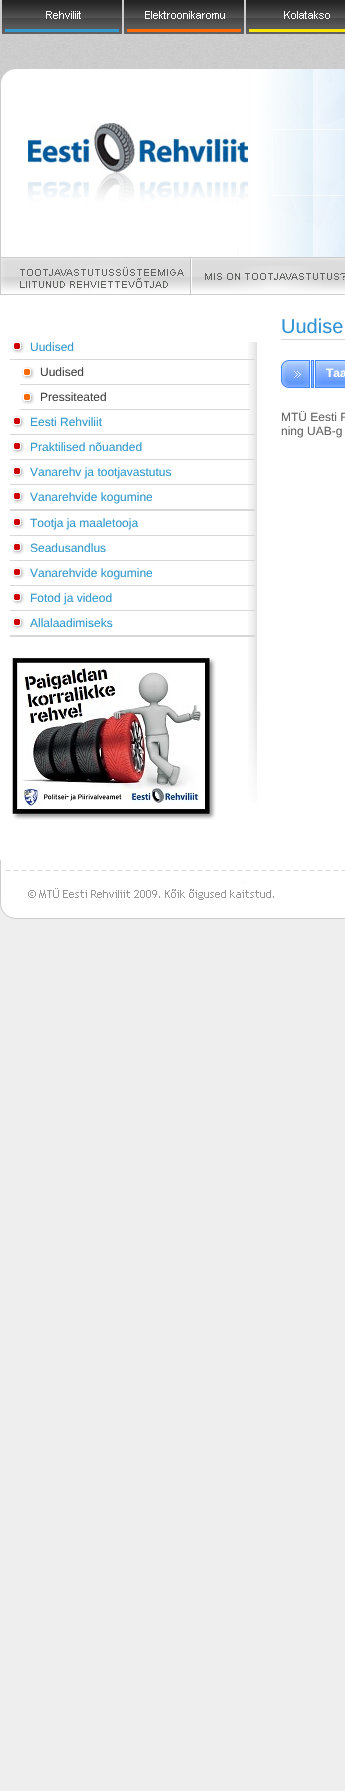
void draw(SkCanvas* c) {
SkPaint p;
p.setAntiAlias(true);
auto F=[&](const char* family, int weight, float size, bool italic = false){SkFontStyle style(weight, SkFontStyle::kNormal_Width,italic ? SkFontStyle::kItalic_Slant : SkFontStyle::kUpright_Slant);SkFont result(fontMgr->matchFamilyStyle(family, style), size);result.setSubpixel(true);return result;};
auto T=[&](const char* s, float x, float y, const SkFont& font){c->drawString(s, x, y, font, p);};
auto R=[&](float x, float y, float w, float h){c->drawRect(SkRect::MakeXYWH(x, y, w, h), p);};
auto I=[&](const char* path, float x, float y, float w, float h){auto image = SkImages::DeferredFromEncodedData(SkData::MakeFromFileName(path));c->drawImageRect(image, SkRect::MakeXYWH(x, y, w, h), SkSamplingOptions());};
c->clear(0xffeeeeee);
I("1.png",0,0,345,69);
I("2.png",2,0,120,34);
I("3.png",124,0,120,34);
I("4.png",246,0,99,34);
I("5.png",228,69,117,188);
I("6.png",0,69,228,188);
I("7.png",0,257,345,38);
I("8.png",20,258,172,36);
I("9.png",205,266,140,25);
p.setColor(0xffffffff);
R(0,295,345,565);
I("10.png",248,342,9,460);
I("11.png",11,340,14,14);
p.setColor(0xffd8d8d8);
R(10,359,245,1);
auto f1 = F("Liberation Sans",400,12);
p.setColor(0xff3398cc);
T("Uudised",30,351,f1);
I("12.png",21,366,14,14);
p.setColor(0xffd8d8d8);
R(20,384,230,1);
p.setColor(0xff424242);
T("Uudised",40,376,f1);
I("12.png",21,391,14,14);
p.setColor(0xffd8d8d8);
R(20,409,230,1);
p.setColor(0xff424242);
T("Pressiteated",40,401,f1);
I("11.png",11,415,14,14);
p.setColor(0xffd8d8d8);
R(10,434,245,1);
p.setColor(0xff3398cc);
T("Eesti Rehviliit",30,426,f1);
I("11.png",11,440,14,14);
p.setColor(0xffd8d8d8);
R(10,459,245,1);
p.setColor(0xff3398cc);
T("Praktilised nõuanded",30,451,f1);
I("11.png",11,465,14,14);
p.setColor(0xffd8d8d8);
R(10,484,245,1);
p.setColor(0xff3398cc);
T("Vanarehv ja tootjavastutus",30,476,f1);
I("11.png",11,490,14,14);
p.setColor(0xffd8d8d8);
R(10,509,245,2);
p.setColor(0xff3398cc);
T("Vanarehvide kogumine",30,501,f1);
I("11.png",11,516,14,14);
p.setColor(0xffd8d8d8);
R(10,535,245,1);
p.setColor(0xff3398cc);
T("Tootja ja maaletooja",30,527,f1);
I("11.png",11,541,14,14);
p.setColor(0xffd8d8d8);
R(10,560,245,1);
p.setColor(0xff3398cc);
T("Seadusandlus",30,552,f1);
I("11.png",11,566,14,14);
p.setColor(0xffd8d8d8);
R(10,585,245,1);
p.setColor(0xff3398cc);
T("Vanarehvide kogumine",30,577,f1);
I("11.png",11,591,14,14);
p.setColor(0xffd8d8d8);
R(10,610,245,1);
p.setColor(0xff3398cc);
T("Fotod ja videod",30,602,f1);
I("11.png",11,616,14,14);
p.setColor(0xffd8d8d8);
R(10,635,245,2);
p.setColor(0xff3398cc);
T("Allalaadimiseks",30,627,f1);
I("13.png",12,657,204,163);
p.setColor(0xffd8d8d8);
R(281,339,64,1);
auto f2 = F("Liberation Sans",400,20);
p.setColor(0xff3091d4);
T("Uudise",281,333,f2);
I("14.png",281,360,64,28);
auto f3 = F("Liberation Sans",700,12);
p.setColor(0xffffffff);
T("Taa",326,377,f3);
p.setColor(0xff646464);
T("MTÜ Eesti R",281,421,f1);
T("ning UAB-g",281,435,f1);
I("15.png",0,860,345,59);
}
